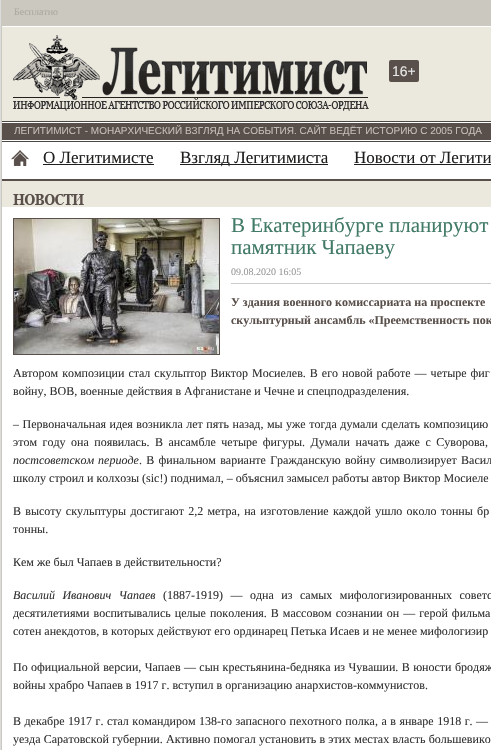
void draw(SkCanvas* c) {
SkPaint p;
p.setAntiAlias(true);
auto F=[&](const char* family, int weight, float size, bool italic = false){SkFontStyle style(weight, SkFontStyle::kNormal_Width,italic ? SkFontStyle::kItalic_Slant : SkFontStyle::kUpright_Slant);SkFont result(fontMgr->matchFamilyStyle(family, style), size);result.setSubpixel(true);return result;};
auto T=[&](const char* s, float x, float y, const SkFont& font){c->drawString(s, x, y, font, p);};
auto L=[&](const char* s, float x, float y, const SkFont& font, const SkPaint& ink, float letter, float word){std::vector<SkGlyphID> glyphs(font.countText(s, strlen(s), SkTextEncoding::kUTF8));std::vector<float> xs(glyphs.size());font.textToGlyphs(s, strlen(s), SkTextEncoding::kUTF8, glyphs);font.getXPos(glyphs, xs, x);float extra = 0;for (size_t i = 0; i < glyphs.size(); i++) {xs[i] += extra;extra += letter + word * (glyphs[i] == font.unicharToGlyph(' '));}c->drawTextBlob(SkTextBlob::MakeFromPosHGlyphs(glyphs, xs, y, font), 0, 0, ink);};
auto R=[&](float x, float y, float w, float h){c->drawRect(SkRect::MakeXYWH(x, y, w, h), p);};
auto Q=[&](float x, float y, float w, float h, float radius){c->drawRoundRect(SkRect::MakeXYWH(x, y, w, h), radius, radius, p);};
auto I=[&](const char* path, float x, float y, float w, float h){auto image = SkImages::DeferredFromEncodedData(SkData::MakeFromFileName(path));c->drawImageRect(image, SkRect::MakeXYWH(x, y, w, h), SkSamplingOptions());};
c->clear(0xffdcdcdc);
p.setColor(0xffcbc8c0);
R(1,0,490,750);
p.setColor(0xffffffff);
R(2,26,489,1);
auto f1 = F("Liberation Serif",400,10);
p.setColor(0xffaba8a1);
T("Бесплатно",14,15,f1);
p.setColor(0xffebe8dd);
R(2,27,489,94);
p.setColor(0xff4a4945);
R(2,121,489,1);
I("1.png",13,35,356,76);
p.setColor(0xff5a504b);
Q(389,60,30,22,2);
auto f2 = F("Liberation Sans",400,14);
p.setColor(0xffe7e7e7);
T("16+",392,76,f2);
p.setColor(0xffffffff);
R(2,142,489,608);
p.setColor(0xff4a4945);
R(2,141,489,1);
p.setColor(0xff5a504b);
R(2,123,489,17);
p.setColor(0xffffffff);
R(2,122,489,1);
R(2,140,489,1);
auto f3 = F("Liberation Sans",400,10);
p.setColor(0xffc4bcb8);
T("ЛЕГИТИМИСТ - МОНАРХИЧЕСКИЙ ВЗГЛЯД НА СОБЫТИЯ. САЙТ ВЕДЁТ ИСТОРИЮ С 2005 ГОДА",14,134,f3);
I("2.png",11,150,18,16);
auto f4 = F("Liberation Serif",400,17);
p.setColor(0xff201e1c);
T("О Легитимисте",43,163,f4);
R(43,164,111,1);
R(180,164,148,1);
T("Взгляд Легитимиста",180,163,f4);
T("Новости от Легити",354,163,f4);
R(354,164,137,1);
p.setColor(0xffebe8dd);
R(2,181,489,26);
p.setColor(0xff5a504b);
R(2,179,489,2);
I("3.png",13,194,71,11);
p.setStroke(true);
p.setStrokeWidth(1);
c->drawRect(SkRect::MakeXYWH(13.5,218.5,206,136),p);
I("4.png",14,219,205,135);
auto f5 = F("Liberation Serif",400,21);
p.setStroke(false);
p.setColor(0xff427a68);
T("В Екатеринбурге планируют",231,232,f5);
T("памятник Чапаеву",231,254,f5);
p.setColor(0xffcccccc);
R(231,283,260,1);
p.setColor(0xff999999);
T("09.08.2020 16:05",231,275,f1);
auto f6 = F("Liberation Serif",700,12);
p.setColor(0xff5a504b);
T("У здания военного комиссариата на проспекте",231,306,f6);
T("скульптурный ансамбль «Преемственность пок",231,324,f6);
auto f7 = F("Liberation Serif",400,12);
p.setColor(0xff333333);
L("Автором композиции стал скульптор Виктор Мосиелев. В его новой работе — четыре фиг",13,377,f7,p,0,1);
T("войну, ВОВ, военные действия в Афганистане и Чечне и спецподразделения.",13,395,f7);
L("– Первоначальная идея возникла лет пять назад, мы уже тогда думали сделать композицию",13,428,f7,p,0,.5);
L("этом году она появилась. В ансамбле четыре фигуры. Думали начать даже с Суворова,",13,446,f7,p,0,2.5);
auto f8 = F("Liberation Serif",400,12,true);
L("постсоветском периоде",13,464,f8,p,0,1);
L(". В финальном варианте Гражданскую войну символизирует Васил",139,464,f7,p,0,1.25);
T("школу строил и колхозы (sic!) поднимал, – объяснил замысел работы автор Виктор Мосиеле",13,482,f7);
L("В высоту скульптуры достигают 2,2 метра, на изготовление каждой ушло около тонны бр",13,515,f7,p,0,1.25);
T("тонны.",13,533,f7);
T("Кем же был Чапаев в действительности?",13,566,f7);
L("Василий Иванович Чапаев",13,599,f8,p,0,4.5);
L("(1887-1919) — одна из самых мифологизированных советс",163,599,f7,p,0,4.5);
L("десятилетиями воспитывались целые поколения. В массовом сознании он — герой фильма",13,617,f7,p,0,1);
T("сотен анекдотов, в которых действуют его ординарец Петька Исаев и не менее мифологизир",13,635,f7);
L("По официальной версии, Чапаев — сын крестьянина-бедняка из Чувашии. В юности бродяж",13,671,f7,p,0,.4);
T("войны храбро Чапаев в 1917 г. вступил в организацию анархистов-коммунистов.",13,689,f7);
L("В декабре 1917 г. стал командиром 138-го запасного пехотного полка, а в январе 1918 г. —",13,725,f7,p,0,.5);
L("уезда Саратовской губернии. Активно помогал установить в этих местах власть большевико",13,743,f7,p,0,.25);
}
